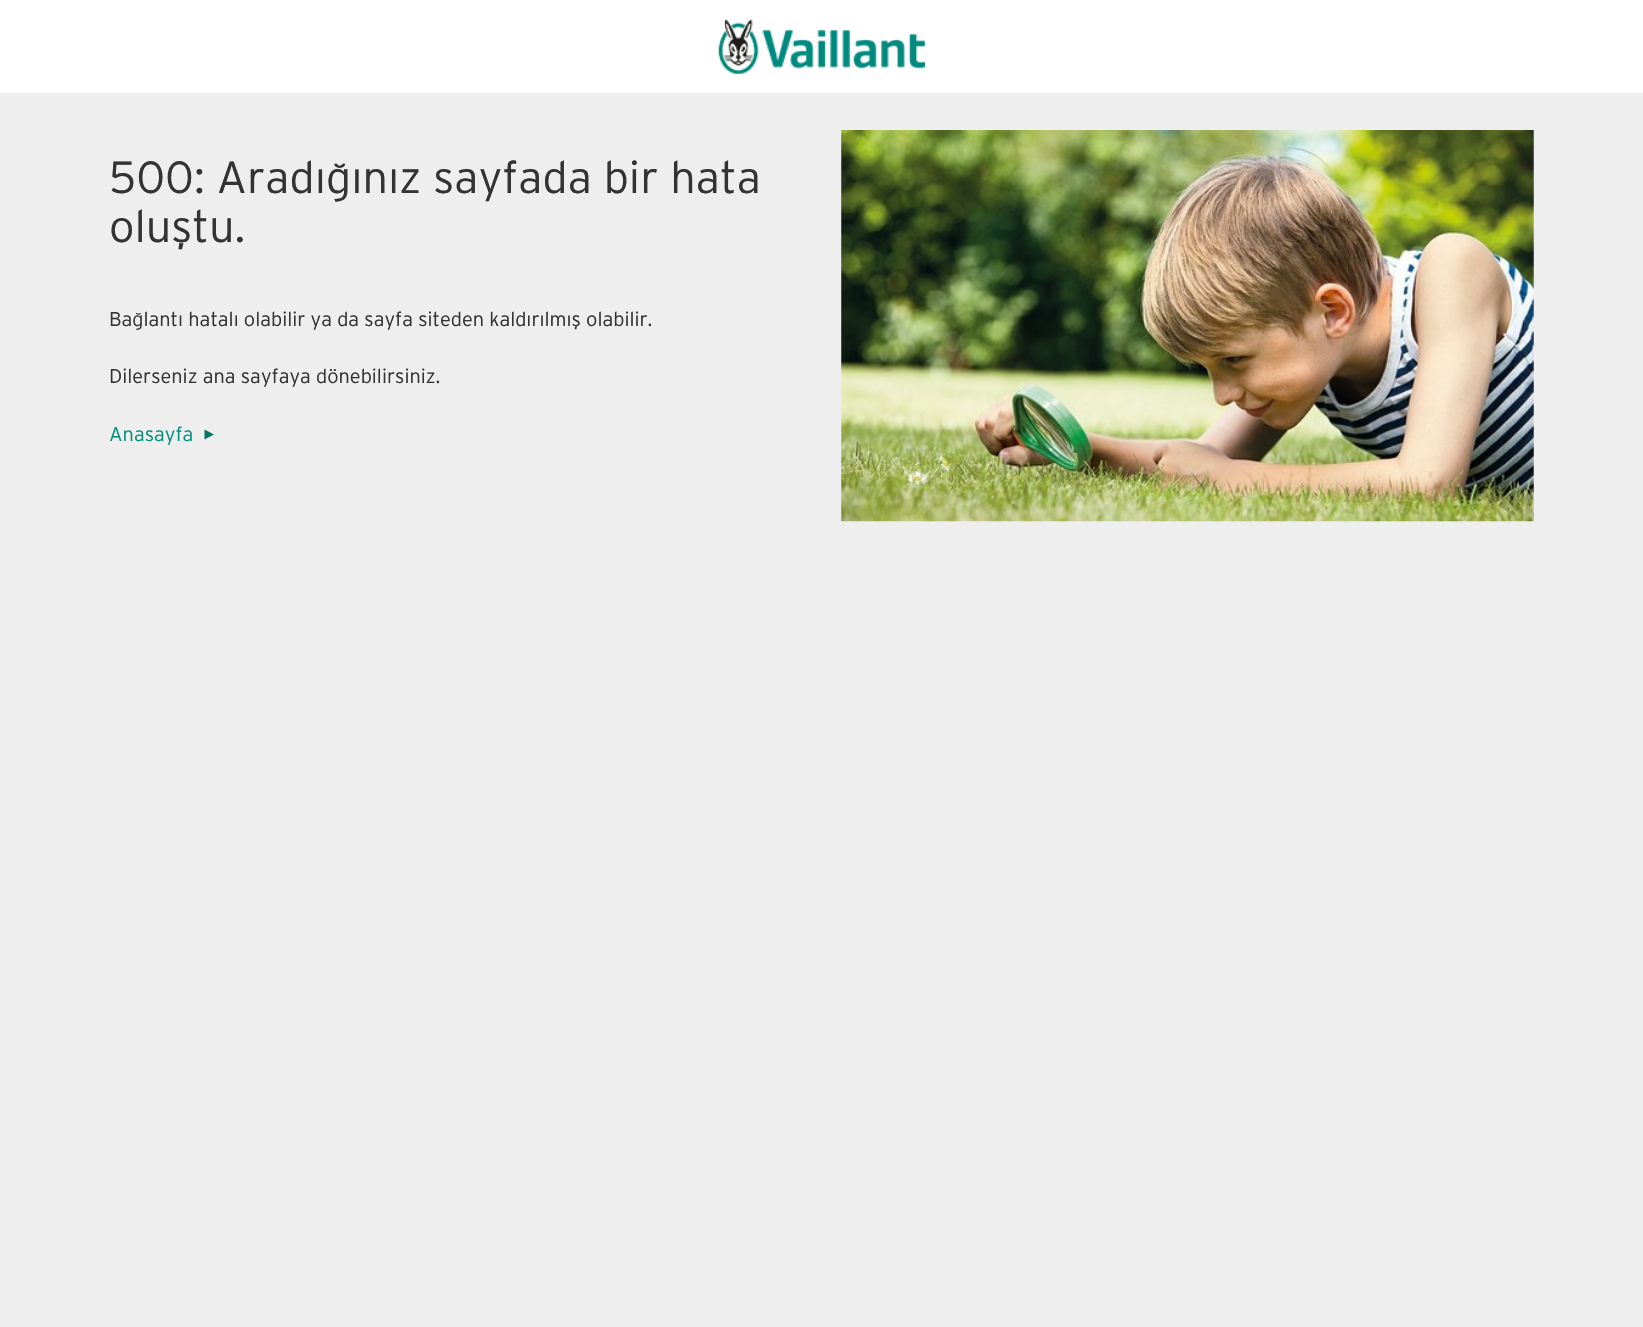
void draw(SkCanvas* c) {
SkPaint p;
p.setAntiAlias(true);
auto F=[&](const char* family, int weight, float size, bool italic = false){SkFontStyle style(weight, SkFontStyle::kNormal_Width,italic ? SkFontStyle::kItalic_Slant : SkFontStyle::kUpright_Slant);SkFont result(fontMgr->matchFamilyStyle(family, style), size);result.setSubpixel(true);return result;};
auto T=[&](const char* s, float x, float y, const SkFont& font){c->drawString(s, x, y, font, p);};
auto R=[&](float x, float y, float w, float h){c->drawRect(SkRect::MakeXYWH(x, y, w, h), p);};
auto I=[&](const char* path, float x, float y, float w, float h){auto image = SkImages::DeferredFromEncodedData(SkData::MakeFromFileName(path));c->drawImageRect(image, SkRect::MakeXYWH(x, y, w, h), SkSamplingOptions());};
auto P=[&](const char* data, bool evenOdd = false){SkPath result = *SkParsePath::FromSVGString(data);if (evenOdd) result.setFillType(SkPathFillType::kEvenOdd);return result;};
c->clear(0xffeeeeee);
p.setColor(0xffffffff);
R(0,0,1643,93);
I("1.png",718,19,207,55);
auto f1 = F("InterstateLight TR",300,45);
p.setColor(0xff333333);
T("500: Aradığınız sayfada bir hata",109,193,f1);
T("oluştu.",109,242,f1);
auto f2 = F("InterstateLight TR",300,20);
T("Bağlantı hatalı olabilir ya da sayfa siteden kaldırılmış olabilir.",109,326,f2);
T("Dilerseniz ana sayfaya dönebilirsiniz.",109,383,f2);
p.setColor(0xff00917e);
T("Anasayfa",109,441,f2);
p.setColor(0xff007465);
c->drawPath(P("M214 434.5l-9.5 5v-10z"),p);
I("2.png",841,130,693,392);
}
